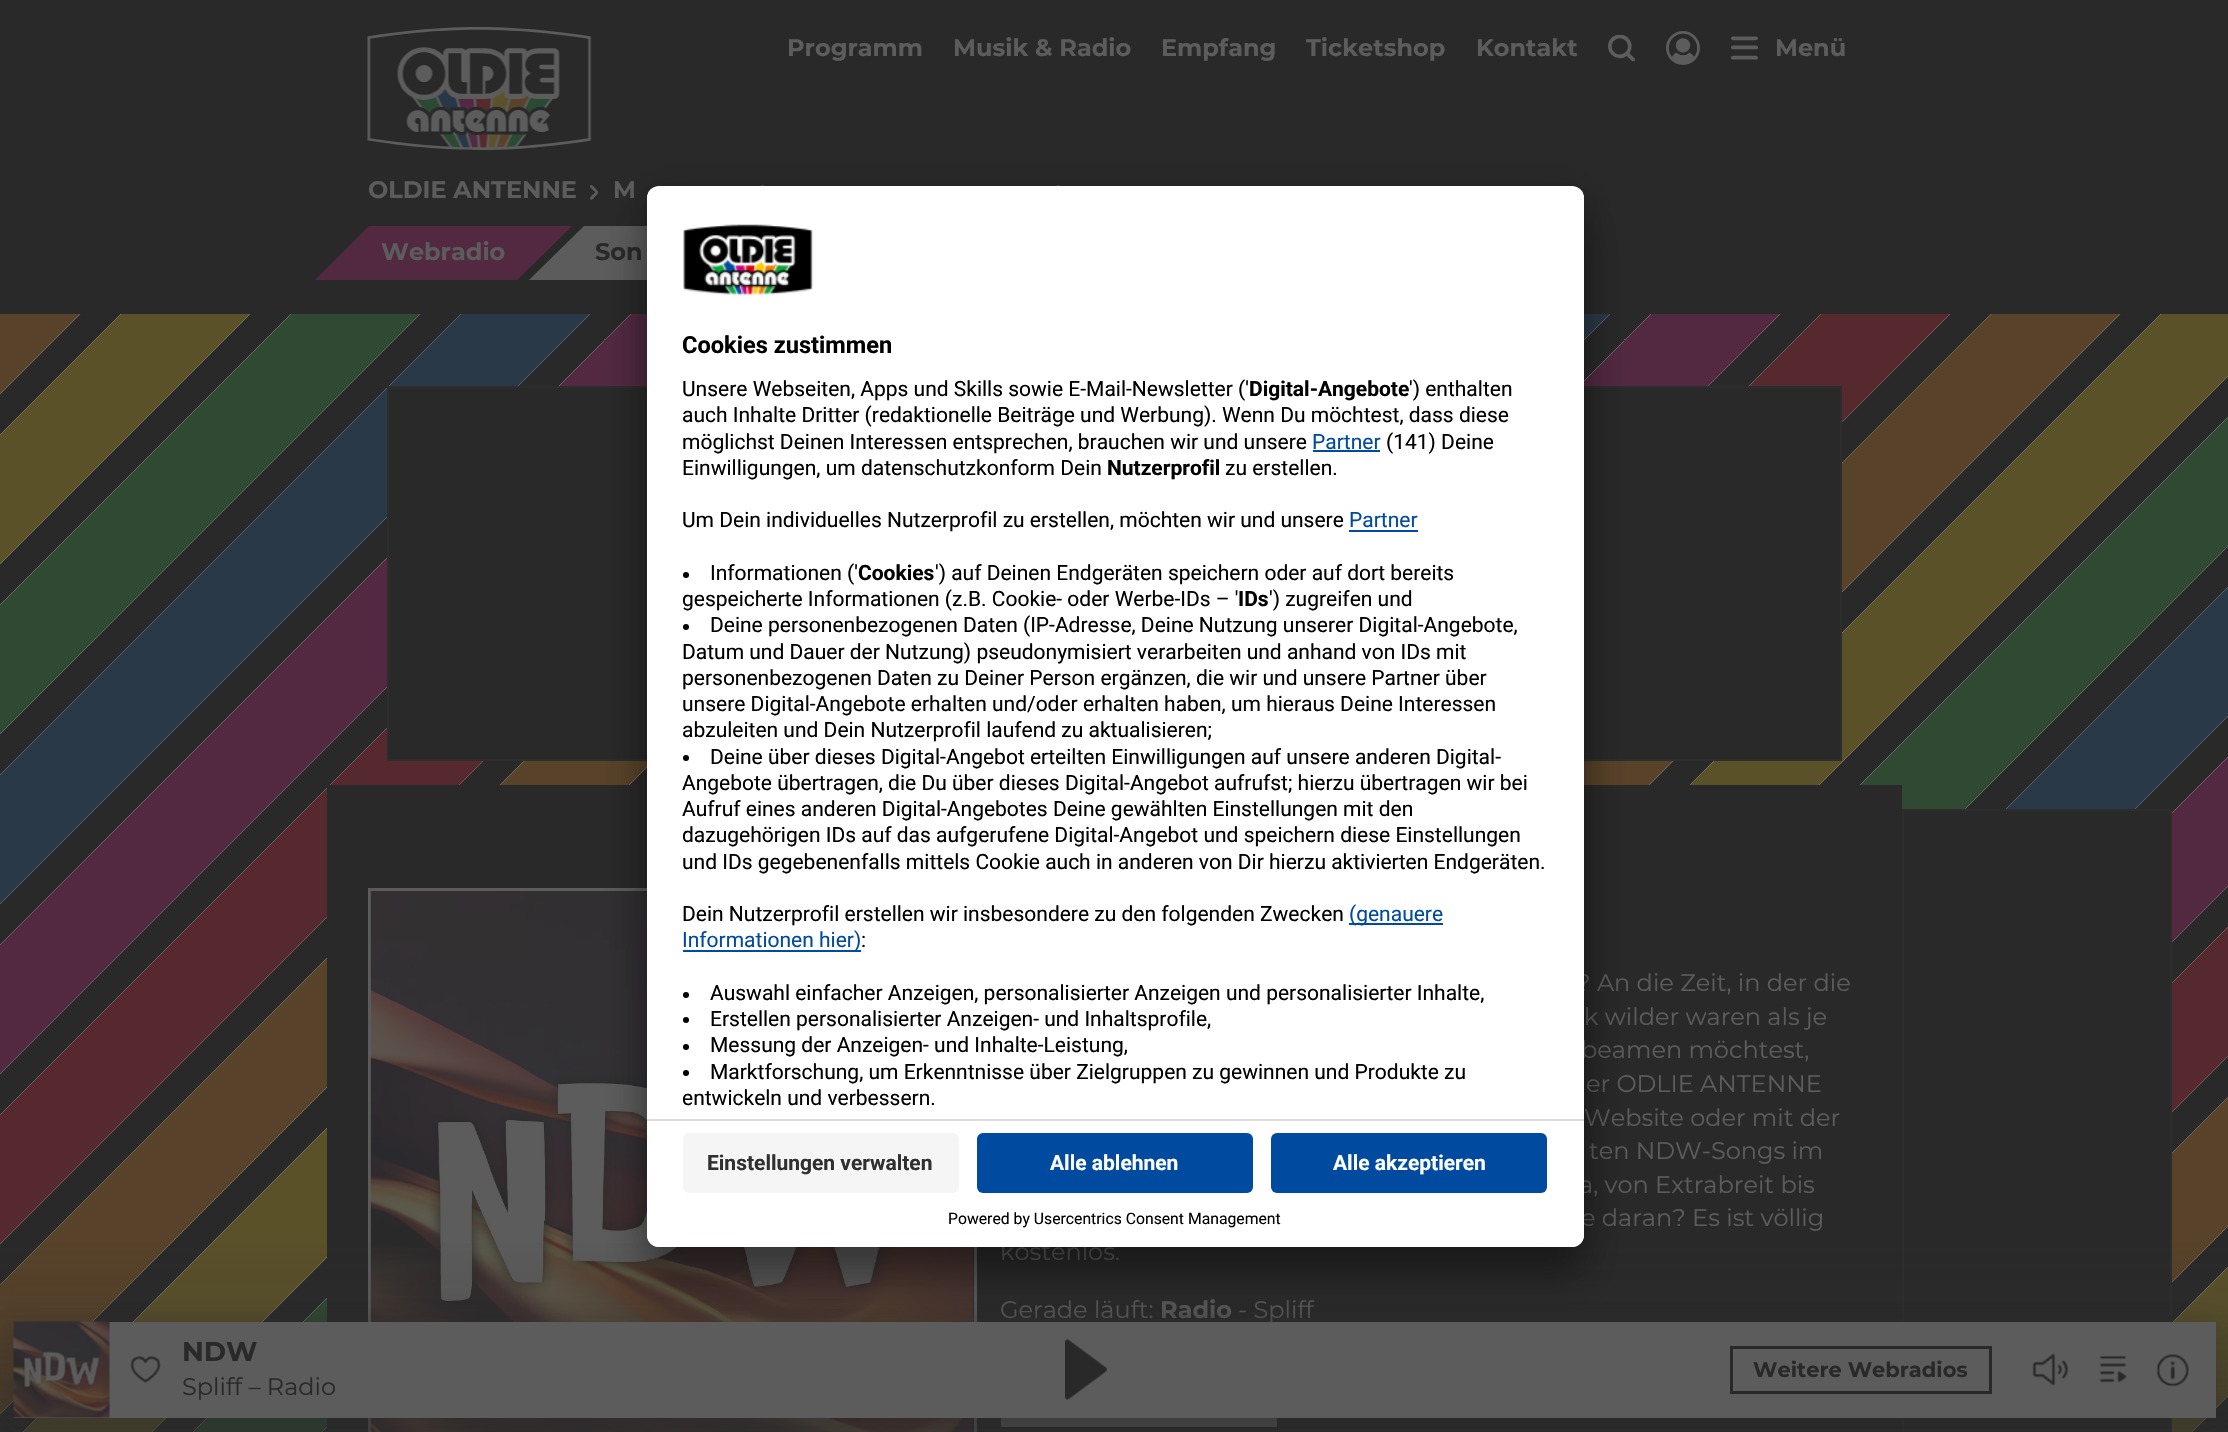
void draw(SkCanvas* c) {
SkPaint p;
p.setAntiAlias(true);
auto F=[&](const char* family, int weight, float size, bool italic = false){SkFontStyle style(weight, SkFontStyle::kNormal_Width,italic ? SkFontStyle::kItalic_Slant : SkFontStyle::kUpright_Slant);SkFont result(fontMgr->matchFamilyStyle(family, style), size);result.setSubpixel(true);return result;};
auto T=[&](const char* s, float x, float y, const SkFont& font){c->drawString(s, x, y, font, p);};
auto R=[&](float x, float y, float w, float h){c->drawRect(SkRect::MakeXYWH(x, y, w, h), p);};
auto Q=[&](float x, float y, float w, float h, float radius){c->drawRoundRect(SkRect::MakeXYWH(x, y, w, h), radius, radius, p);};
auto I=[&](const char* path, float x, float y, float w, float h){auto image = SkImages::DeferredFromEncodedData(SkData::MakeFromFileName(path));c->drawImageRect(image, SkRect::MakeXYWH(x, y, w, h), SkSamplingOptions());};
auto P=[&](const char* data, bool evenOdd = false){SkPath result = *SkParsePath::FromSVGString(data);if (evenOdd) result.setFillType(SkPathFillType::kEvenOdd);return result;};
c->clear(0xffffffff);
I("1.png",0,314,2228,1118);
p.setColor(0xff292929);
R(0,0,2228,314);
I("2.png",367,27,225,123);
auto f1 = F("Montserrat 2",100,24);
p.setColor(0xff5c5c5c);
T("Programm",787,56,f1);
T("Musik & Radio",953,56,f1);
T("Empfang",1161,56,f1);
T("Ticketshop",1306,56,f1);
T("Kontakt",1476,56,f1);
I("3.png",1608,34,27,28);
I("4.png",1666,31,34,34);
I("5.png",1731,36,27,24);
T("Menü",1775,56,f1);
T("OLDIE ANTENNE",368,198,f1);
c->drawPath(P("M592.5 185.5l3.5 3.5c.5 1 3 3 1.5 4h-1.5l-6-6c-.5-1.5 1-3 2.5-1.5z"),p);
T("M",613,198,f1);
c->drawPath(P("M597.5 194l-3.5 3.5c-.5 1-2.5 3.5-4 1.5v-1.5l6-6c1.5-.5 2.5 1 1.5 2.5z"),p);
c->drawPath(P("M763.5 185.5l3.5 3.5c.5 1 3.5 3 1.5 4h-1.5l-6-6c-.5-1.5 1.5-3 2.5-1.5z"),p);
c->drawPath(P("M1059 185.5l3.5 3.5c1 1 3.5 3 1.5 4h-1.5l-6-6c-.5-1.5 1.5-3 2.5-1.5z"),p);
p.setColor(0xff522941);
c->drawPath(P("M369 226h203l-55 54h-202z"),p);
p.setColor(0xff5c5c5c);
T("Webradio",381,260,f1);
c->drawPath(P("M584 226h229l-55 54h-229z"),p);
p.setColor(0xff292929);
T("Son",595,260,f1);
c->drawRect(SkRect::MakeXYWH(388,387,1453,373),p);
p.setStroke(true);
p.setStrokeWidth(2);
p.setColor(0xff2d2d2d);
c->drawRect(SkRect::MakeXYWH(388,387,1453,373),p);
p.setStroke(false);
p.setColor(0xff292929);
R(327,785,1575,647);
p.setStroke(true);
p.setStrokeWidth(3);
p.setColor(0xff5c5c5c);
c->drawRect(SkRect::MakeXYWH(369.5,889.5,606,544),p);
I("6.png",370,891,604,541);
auto f2 = F("Montserrat",100,24);
p.setStroke(false);
T("? An die Zeit, in der die",1577,991,f2);
T("k wilder waren als je",1584,1025,f2);
T("beamen möchtest,",1581,1058,f2);
T("er ODLIE ANTENNE",1586,1092,f2);
T("Website oder mit der",1584,1126,f2);
T("ten NDW-Songs im",1589,1159,f2);
T("a, von Extrabreit bis",1579,1193,f2);
T("e daran? Es ist völlig",1581,1226,f2);
T("kostenlos.",1000,1260,f2);
T("Gerade läuft:",1000,1318,f2);
T("Radio",1160,1318,f1);
T("- Spliff",1238,1318,f2);
R(1001,1418,276,9);
p.setColor(0xff292929);
c->drawRect(SkRect::MakeXYWH(1903,810,268,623),p);
p.setStroke(true);
p.setStrokeWidth(2);
p.setColor(0xff2d2d2d);
c->drawRect(SkRect::MakeXYWH(1903,810,268,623),p);
p.setStroke(false);
{
const SkColor colors[] = {0x00292929,0x21292929,0x8f292929};
const float stops[] = {.01,.42,1};
const SkPoint ends[] = {{1115,1221}, {1115,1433}};
p.setShader(SkGradientShader::MakeLinear(ends, colors, stops, 3, SkTileMode::kClamp));
p.setAlpha(255);
}
R(0,1243,2228,189);
p.setShader(nullptr);
p.setColor(0x4d292929);
p.setMaskFilter(SkMaskFilter::MakeBlur(kNormal_SkBlurStyle, 12));
c->drawRect(SkRect::MakeXYWH(14,1322,2202,96),p);
p.setMaskFilter(nullptr);
p.setColor(0xff5c5c5c);
R(14,1322,2202,96);
I("7.png",13,1321,97,97);
I("8.png",130,1356,31,27);
auto f3 = F("Montserrat 2",100,27);
p.setColor(0xff292929);
T("NDW",182,1361,f3);
T("Spliff – Radio",182,1395,f2);
I("9.png",1065,1339,42,61);
p.setStroke(true);
p.setStrokeWidth(3);
c->drawRect(SkRect::MakeXYWH(1731.5,1347.5,259,45),p);
auto f4 = F("Montserrat 2",100,21);
p.setStroke(false);
T("Weitere Webradios",1753,1377,f4);
I("10.png",2032,1353,37,33);
I("11.png",2099,1355,28,28);
I("12.png",2156,1354,33,33);
p.setColor(0x4d000000);
p.setMaskFilter(SkMaskFilter::MakeBlur(kNormal_SkBlurStyle, 21));
c->drawRoundRect(SkRect::MakeXYWH(647,216,937,1061),12,12,p);
p.setMaskFilter(nullptr);
p.setColor(0x38000000);
p.setMaskFilter(SkMaskFilter::MakeBlur(kNormal_SkBlurStyle, 19.5));
c->drawRoundRect(SkRect::MakeXYWH(647,194,937,1060),12,12,p);
p.setMaskFilter(nullptr);
p.setColor(0xffffffff);
Q(647,186,937,1061,12);
c->save();
c->clipPath(P("M659 186h913c6.5 0 12 5.5 12 12v1037c0 6.5-5.5 12-12 12h-913c-6.5 0-12-5.5-12-12v-1037c0-6.5 5.5-12 12-12z"),true);
c->clipPath(P("M659 186h913c6.5 0 12 5.5 12 12v921h-937v-921c0-6.5 5.5-12 12-12z"),true);
R(647,188,937,931);
c->restore();
I("13.png",683,224,130,72);
auto f5 = F("Roboto",700,23.6);
p.setColor(0xff000000);
T("Cookies zustimmen",682,353,f5);
auto f6 = F("Roboto",400,21);
T("Unsere Webseiten, Apps und Skills sowie E-Mail-Newsletter ('",682,396,f6);
auto f7 = F("Roboto",700,21);
T("Digital-Angebote",1249,396,f7);
T("') enthalten",1409,396,f6);
T("auch Inhalte Dritter (redaktionelle Beiträge und Werbung). Wenn Du möchtest, dass diese",682,422,f6);
T("möglichst Deinen Interessen entsprechen, brauchen wir und unsere",682,449,f6);
p.setColor(0xff004ba0);
T("Partner",1312,449,f6);
R(1313,450,67,2);
p.setColor(0xff000000);
T("(141) Deine",1386,449,f6);
T("Einwilligungen, um datenschutzkonform Dein",682,475,f6);
T("Nutzerprofil",1107,475,f7);
T("zu erstellen.",1225,475,f6);
T("Um Dein individuelles Nutzerprofil zu erstellen, möchten wir und unsere",682,527,f6);
p.setColor(0xff004ba0);
T("Partner",1349,527,f6);
R(1349,530,69,2);
p.setColor(0xff000000);
c->drawCircle(686,575,3,p);
T("Informationen ('",710,580,f6);
T("Cookies",858,580,f7);
T("') auf Deinen Endgeräten speichern oder auf dort bereits",935,580,f6);
c->save();
c->clipRect(SkRect::MakeXYWH(683,371,865,748));
T("gespeicherte Informationen (z.B. Cookie- oder Werbe-IDs – '",682,606,f6);
c->restore();
T("IDs",1238,606,f7);
T("') zugreifen und",1269,606,f6);
c->drawCircle(686,627,3,p);
T("Deine personenbezogenen Daten (IP-Adresse, Deine Nutzung unserer Digital-Angebote,",710,632,f6);
T("Datum und Dauer der Nutzung) pseudonymisiert verarbeiten und anhand von IDs mit",682,659,f6);
T("personenbezogenen Daten zu Deiner Person ergänzen, die wir und unsere Partner über",682,685,f6);
T("unsere Digital-Angebote erhalten und/oder erhalten haben, um hieraus Deine Interessen",682,711,f6);
T("abzuleiten und Dein Nutzerprofil laufend zu aktualisieren;",682,737,f6);
c->drawCircle(686,758,3,p);
T("Deine über dieses Digital-Angebot erteilten Einwilligungen auf unsere anderen Digital-",710,764,f6);
T("Angebote übertragen, die Du über dieses Digital-Angebot aufrufst; hierzu übertragen wir bei",682,790,f6);
T("Aufruf eines anderen Digital-Angebotes Deine gewählten Einstellungen mit den",682,816,f6);
c->save();
c->clipRect(SkRect::MakeXYWH(683,371,865,748));
T("dazugehörigen IDs auf das aufgerufene Digital-Angebot und speichern diese Einstellungen",682,842,f6);
c->restore();
T("und IDs gegebenenfalls mittels Cookie auch in anderen von Dir hierzu aktivierten Endgeräten.",682,869,f6);
T("Dein Nutzerprofil erstellen wir insbesondere zu den folgenden Zwecken",682,921,f6);
p.setColor(0xff004ba0);
R(1349,923,94,2);
T("(genauere",1349,921,f6);
R(683,950,178,2);
T("Informationen hier)",682,947,f6);
p.setColor(0xff000000);
T(":",861,947,f6);
c->drawCircle(686,995,3,p);
T("Auswahl einfacher Anzeigen, personalisierter Anzeigen und personalisierter Inhalte,",710,1000,f6);
c->drawCircle(686,1020,3,p);
T("Erstellen personalisierter Anzeigen- und Inhaltsprofile,",710,1026,f6);
c->drawCircle(686,1047,3,p);
T("Messung der Anzeigen- und Inhalte-Leistung,",710,1052,f6);
c->drawCircle(686,1073,3,p);
T("Marktforschung, um Erkenntnisse über Zielgruppen zu gewinnen und Produkte zu",710,1079,f6);
c->save();
c->clipRect(SkRect::MakeXYWH(683,371,865,748));
T("entwickeln und verbessern.",682,1105,f6);
c->restore();
p.setColor(0xffffffff);
c->drawPath(P("M647 1119h937v116c0 6.5-5.5 12-12 12h-913c-6.5 0-12-5.5-12-12z"),p);
p.setColor(0xffdddddd);
R(647,1119,937,2);
p.setColor(0xfff5f5f5);
Q(683,1133,276,60,6);
p.setColor(0xff303030);
T("Einstellungen verwalten",707,1170,f7);
p.setColor(0xff004ba0);
Q(977,1133,276,60,6);
p.setColor(0xffffffff);
T("Alle ablehnen",1050,1170,f7);
p.setColor(0xff004ba0);
Q(1271,1133,276,60,6);
p.setColor(0xffffffff);
T("Alle akzeptieren",1333,1170,f7);
auto f8 = F("Roboto",400,15.75);
p.setColor(0xff000000);
T("Powered by Usercentrics Consent Management",948,1224,f8);
}
